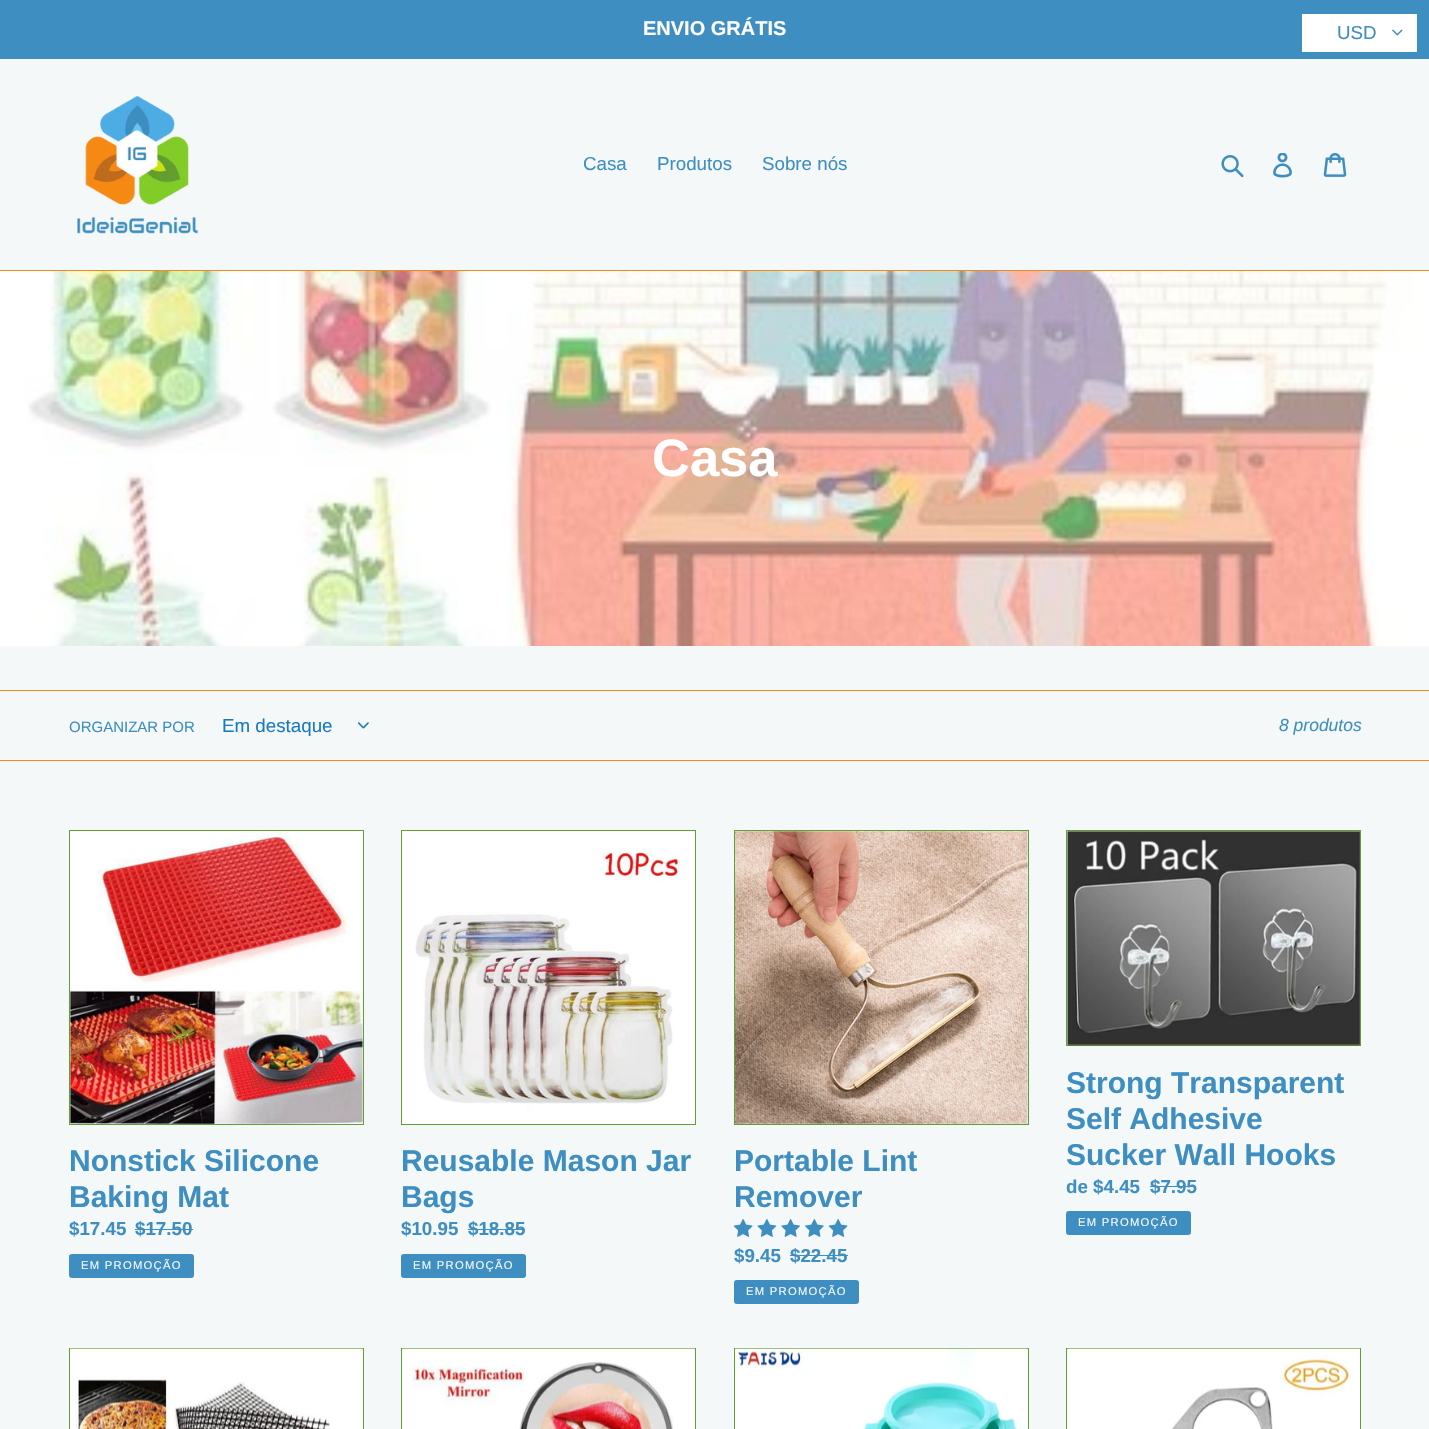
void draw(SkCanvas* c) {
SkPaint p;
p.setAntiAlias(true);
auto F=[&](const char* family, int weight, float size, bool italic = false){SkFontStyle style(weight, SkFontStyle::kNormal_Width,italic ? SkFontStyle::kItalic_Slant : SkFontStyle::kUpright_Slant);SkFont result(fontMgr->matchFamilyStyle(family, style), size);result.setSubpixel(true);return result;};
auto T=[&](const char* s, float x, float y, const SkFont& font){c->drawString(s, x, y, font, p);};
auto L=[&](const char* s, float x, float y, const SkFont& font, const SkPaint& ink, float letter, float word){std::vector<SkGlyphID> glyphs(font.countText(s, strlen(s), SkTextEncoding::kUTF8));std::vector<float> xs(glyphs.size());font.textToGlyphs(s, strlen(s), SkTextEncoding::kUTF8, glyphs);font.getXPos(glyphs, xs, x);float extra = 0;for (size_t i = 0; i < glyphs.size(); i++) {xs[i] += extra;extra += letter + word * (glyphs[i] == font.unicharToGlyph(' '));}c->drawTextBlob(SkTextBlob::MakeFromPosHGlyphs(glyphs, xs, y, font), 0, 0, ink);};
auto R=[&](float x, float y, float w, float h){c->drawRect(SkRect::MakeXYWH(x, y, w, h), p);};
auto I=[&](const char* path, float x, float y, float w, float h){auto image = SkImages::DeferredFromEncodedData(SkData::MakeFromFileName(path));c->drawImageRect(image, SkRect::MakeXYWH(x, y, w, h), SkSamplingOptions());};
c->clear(0xfff4f8f8);
p.setColor(0xff3e8ec1);
R(0,0,1429,59);
auto f1 = F("Liberation Sans",700,20);
p.setColor(0xffffffff);
T("ENVIO GRÁTIS",643,35,f1);
p.setColor(0xfff68913);
R(0,270,1429,1);
I("1.png",77,95,121,139);
auto f2 = F("Liberation Sans",400,18.75);
p.setColor(0xff3e8ec1);
T("Casa",583,170,f2);
T("Produtos",657,170,f2);
T("Sobre nós",762,170,f2);
I("2.png",1221,155,23,23);
I("3.png",1273,153,19,25);
I("4.png",1323,153,24,24);
p.setColor(0xffffffff);
R(1302,14,115,38);
p.setColor(0xff3e8ec1);
T("USD",1337,39,f2);
I("5.png",1392,29,11,7);
I("6.png",0,271,1429,375);
auto f3 = F("Liberation Sans",700,52.5);
p.setColor(0xffffffff);
T("Casa",652,476,f3);
p.setColor(0xfff68913);
R(0,690,1429,1);
R(0,760,1429,1);
auto f4 = F("Liberation Sans",400,15);
p.setColor(0xff3e8ec1);
T("ORGANIZAR POR",69,732,f4);
p.setColor(0xff197bbd);
T("Em destaque",222,732,f2);
I("7.png",358,722,11,7);
auto f5 = F("Liberation Sans",400,17.5,true);
p.setColor(0xff3e8ec1);
T("8 produtos",1279,731,f5);
p.setStroke(true);
p.setStrokeWidth(1);
p.setColor(0xff639e30);
c->drawRect(SkRect::MakeXYWH(69.5,830.5,294,294),p);
I("8.png",70,831,293,293);
auto f6 = F("Liberation Sans",700,30);
p.setStroke(false);
p.setColor(0xff3e8ec1);
T("Nonstick Silicone",69,1171,f6);
T("Baking Mat",69,1207,f6);
auto f7 = F("Liberation Sans",700,18.75);
T("$17.45",69,1235,f7);
T("$17.50",135,1235,f7);
R(135,1229,58,1);
c->drawRoundRect(SkRect::MakeXYWH(69.5,1254.5,124,23),2,2,p);
p.setStroke(true);
c->drawRoundRect(SkRect::MakeXYWH(69.5,1254.5,124,23),2,2,p);
auto f8 = F("Liberation Sans",400,11.25);
p.setStroke(false);
p.setColor(0xfff4f8f8);
L("EM PROMOÇÃO",81,1269,f8,p,1.25,0);
p.setStroke(true);
p.setColor(0xff639e30);
c->drawRect(SkRect::MakeXYWH(401.5,830.5,294,294),p);
I("9.png",402,831,293,293);
p.setStroke(false);
p.setColor(0xff3e8ec1);
T("Reusable Mason Jar",401,1171,f6);
T("Bags",401,1207,f6);
T("$10.95",401,1235,f7);
T("$18.85",468,1235,f7);
R(468,1229,57,1);
c->drawRoundRect(SkRect::MakeXYWH(401.5,1254.5,124,23),2,2,p);
p.setStroke(true);
c->drawRoundRect(SkRect::MakeXYWH(401.5,1254.5,124,23),2,2,p);
p.setStroke(false);
p.setColor(0xfff4f8f8);
L("EM PROMOÇÃO",413,1269,f8,p,1.25,0);
p.setStroke(true);
p.setColor(0xff639e30);
c->drawRect(SkRect::MakeXYWH(734.5,830.5,294,294),p);
I("10.png",735,831,293,293);
p.setStroke(false);
p.setColor(0xff3e8ec1);
T("Portable Lint",734,1171,f6);
T("Remover",734,1207,f6);
I("11.png",733,1219,20,18);
I("12.png",757,1219,20,18);
I("13.png",781,1219,19,18);
I("14.png",805,1219,19,18);
I("11.png",828,1219,20,18);
T("$9.45",734,1262,f7);
T("$22.45",790,1262,f7);
R(790,1255,58,1);
c->drawRoundRect(SkRect::MakeXYWH(734.5,1280.5,124,23),2,2,p);
p.setStroke(true);
c->drawRoundRect(SkRect::MakeXYWH(734.5,1280.5,124,23),2,2,p);
p.setStroke(false);
p.setColor(0xfff4f8f8);
L("EM PROMOÇÃO",746,1295,f8,p,1.25,0);
p.setStroke(true);
p.setColor(0xff639e30);
c->drawRect(SkRect::MakeXYWH(1066.5,830.5,294,215),p);
I("15.png",1067,831,293,215);
p.setStroke(false);
p.setColor(0xff3e8ec1);
T("Strong Transparent",1066,1093,f6);
T("Self Adhesive",1066,1129,f6);
T("Sucker Wall Hooks",1066,1165,f6);
T("de $4.45",1066,1193,f7);
T("$7.95",1150,1193,f7);
R(1150,1186,46,1);
c->drawRoundRect(SkRect::MakeXYWH(1066.5,1211.5,124,23),2,2,p);
p.setStroke(true);
c->drawRoundRect(SkRect::MakeXYWH(1066.5,1211.5,124,23),2,2,p);
p.setStroke(false);
p.setColor(0xfff4f8f8);
L("EM PROMOÇÃO",1078,1226,f8,p,1.25,0);
p.setStroke(true);
p.setColor(0xff639e30);
c->drawRect(SkRect::MakeXYWH(69.5,1348.5,294,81),p);
I("16.png",70,1348,293,81);
c->drawRect(SkRect::MakeXYWH(401.5,1348.5,294,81),p);
I("17.png",402,1348,293,81);
c->drawRect(SkRect::MakeXYWH(734.5,1348.5,294,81),p);
I("18.png",735,1348,293,81);
c->drawRect(SkRect::MakeXYWH(1066.5,1348.5,294,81),p);
I("19.png",1067,1348,293,81);
}
